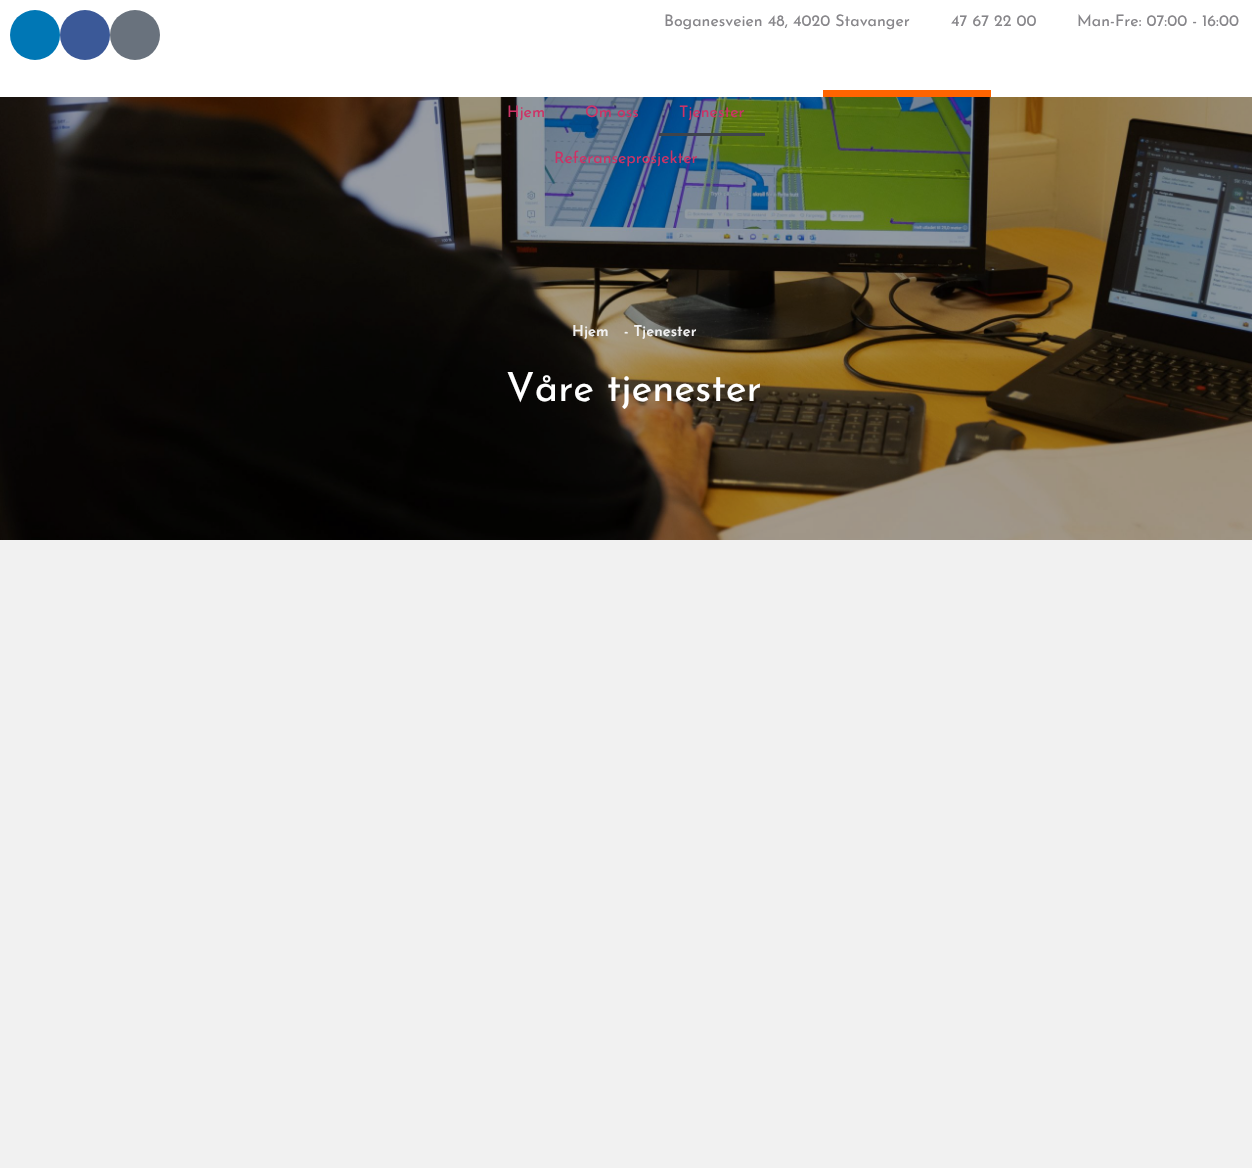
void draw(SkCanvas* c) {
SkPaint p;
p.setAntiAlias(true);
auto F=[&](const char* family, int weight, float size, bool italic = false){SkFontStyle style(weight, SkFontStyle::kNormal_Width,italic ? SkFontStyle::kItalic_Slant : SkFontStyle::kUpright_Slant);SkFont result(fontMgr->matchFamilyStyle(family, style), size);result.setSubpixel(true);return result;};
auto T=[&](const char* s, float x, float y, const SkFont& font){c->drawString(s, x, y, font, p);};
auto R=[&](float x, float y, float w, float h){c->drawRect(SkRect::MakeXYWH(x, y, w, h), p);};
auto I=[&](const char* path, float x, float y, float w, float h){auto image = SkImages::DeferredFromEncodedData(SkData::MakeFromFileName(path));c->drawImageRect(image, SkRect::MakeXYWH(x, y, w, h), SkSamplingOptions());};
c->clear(0xffffffff);
p.setColor(0xff0077b5);
c->drawCircle(35,35,25,p);
p.setColor(0xff3b5998);
c->drawCircle(85,35,25,p);
p.setColor(0xff69727d);
c->drawCircle(135,35,25,p);
auto f1 = F("Josefin Sans",400,16);
p.setColor(0xff87868a);
T("Boganesveien 48, 4020 Stavanger",664,26,f1);
T("47 67 22 00",951,26,f1);
T("Man-Fre: 07:00 - 16:00",1077,26,f1);
p.setColor(0xffff6400);
R(823,90,168,7);
I("1.png",0,97,1252,443);
p.setColor(0xffcc3366);
T("Hjem",507,117,f1);
T("Om oss",585,117,f1);
T("Tjenester",679,117,f1);
p.setColor(0xff3f444b);
R(659,133,106,3);
p.setColor(0xffcc3366);
T("Referanseprosjekter",554,163,f1);
auto f2 = F("Josefin Sans",600,15);
p.setColor(0xfff1f1f1);
T("Hjem",572,336,f2);
T("- Tjenester",624,336,f2);
auto f3 = F("Josefin Sans",400,40);
p.setColor(0xffffffff);
T("Våre tjenester",506,401,f3);
p.setColor(0xfff1f1f1);
R(0,540,1252,628);
}
